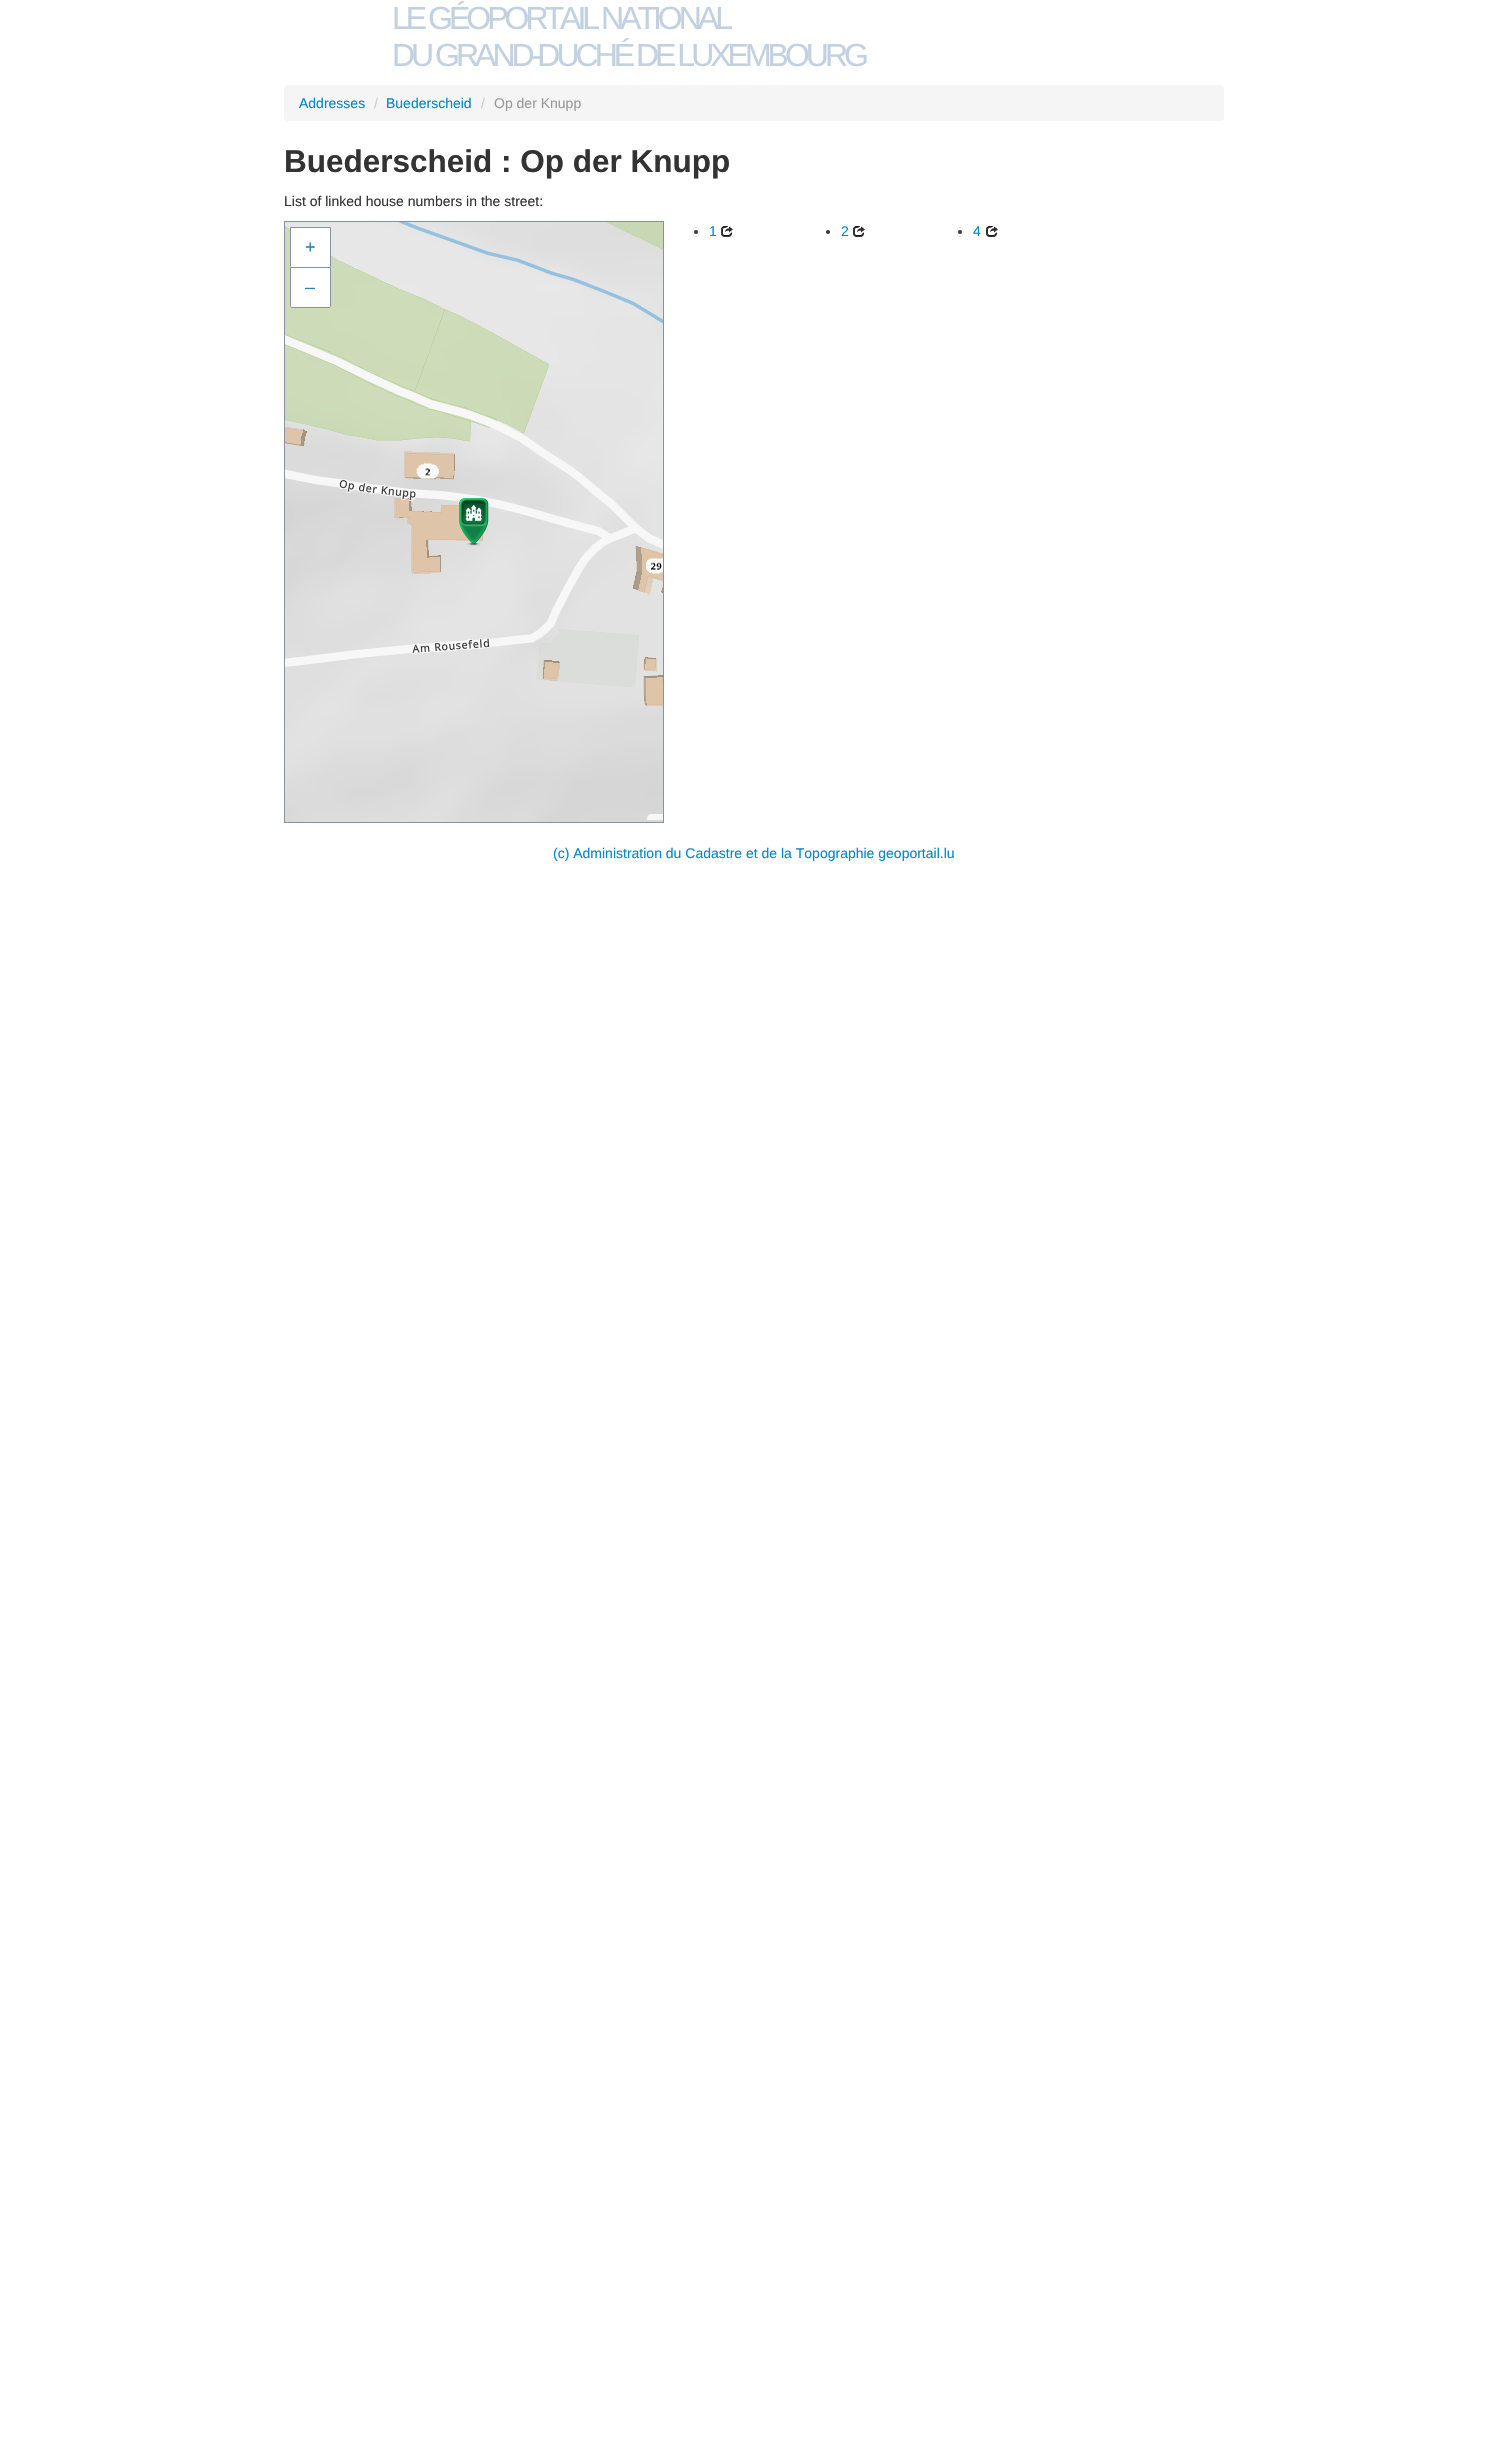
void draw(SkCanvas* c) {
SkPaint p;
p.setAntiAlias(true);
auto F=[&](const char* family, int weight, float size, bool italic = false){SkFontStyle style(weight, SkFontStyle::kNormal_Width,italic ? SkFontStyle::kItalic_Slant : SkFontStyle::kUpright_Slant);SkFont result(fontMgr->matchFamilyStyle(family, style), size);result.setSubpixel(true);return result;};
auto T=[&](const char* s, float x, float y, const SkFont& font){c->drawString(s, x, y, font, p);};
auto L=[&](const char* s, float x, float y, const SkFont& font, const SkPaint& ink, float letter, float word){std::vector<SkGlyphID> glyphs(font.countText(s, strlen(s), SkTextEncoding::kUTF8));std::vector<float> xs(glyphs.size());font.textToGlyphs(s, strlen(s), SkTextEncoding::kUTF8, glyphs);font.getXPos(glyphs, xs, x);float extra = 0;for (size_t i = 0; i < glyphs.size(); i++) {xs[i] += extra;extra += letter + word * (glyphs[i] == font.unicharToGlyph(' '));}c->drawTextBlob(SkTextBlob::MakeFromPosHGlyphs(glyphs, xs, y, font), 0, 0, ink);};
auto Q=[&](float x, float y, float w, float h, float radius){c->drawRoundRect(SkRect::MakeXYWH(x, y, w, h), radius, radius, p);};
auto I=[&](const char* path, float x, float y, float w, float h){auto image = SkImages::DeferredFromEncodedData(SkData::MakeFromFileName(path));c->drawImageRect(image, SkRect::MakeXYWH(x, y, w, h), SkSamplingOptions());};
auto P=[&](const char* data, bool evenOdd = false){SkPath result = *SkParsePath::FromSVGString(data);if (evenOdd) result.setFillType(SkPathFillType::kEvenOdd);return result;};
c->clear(0xffffffff);
auto f1 = F("Liberation Sans",400,32);
p.setColor(0xffc2d1e1);
L("LE GÉOPORTAIL NATIONAL",392,29,f1,p,-4,0);
L("DU GRAND-DUCHÉ DE LUXEMBOURG",392,66,f1,p,-4,0);
p.setColor(0xfff5f5f5);
Q(284,85,940,36,4);
auto f2 = F("Liberation Sans",400,14);
p.setColor(0xff0088cc);
T("Addresses",299,108,f2);
p.setColor(0xffcccccc);
T("/",374,108,f2);
p.setColor(0xff0088cc);
T("Buederscheid",386,108,f2);
p.setColor(0xffcccccc);
T("/",481,108,f2);
p.setColor(0xff999999);
T("Op der Knupp",494,108,f2);
auto f3 = F("Liberation Sans",700,31.5);
p.setColor(0xff333333);
T("Buederscheid : Op der Knupp",284,172,f3);
T("List of linked house numbers in the street:",284,206,f2);
c->drawCircle(696,232,2,p);
p.setColor(0xff0088cc);
T("1",709,236,f2);
I("1.png",721,226,12,11);
p.setColor(0xff333333);
c->drawCircle(828,232,2,p);
p.setColor(0xff0088cc);
T("2",841,236,f2);
I("1.png",853,226,12,11);
p.setColor(0xff333333);
c->drawCircle(960,232,2,p);
p.setColor(0xff0088cc);
T("4",973,236,f2);
I("1.png",986,226,12,11);
p.setStroke(true);
p.setStrokeWidth(1);
p.setColor(0xff8394a0);
c->drawRect(SkRect::MakeXYWH(284.5,221.5,379,601),p);
I("2.png",285,222,378,600);
I("3.png",416,463,247,111);
p.setStroke(false);
p.setColor(0xffffffff);
c->drawPath(P("M290.5 227.5h40v38.5c0 1-.5 1.5-1.5 1.5h-37c-1 0-1.5-.5-1.5-1.5z"),p);
p.setStroke(true);
p.setColor(0xff8394a0);
c->drawPath(P("M290.5 227.5h40v38.5c0 1-.5 1.5-1.5 1.5h-37c-1 0-1.5-.5-1.5-1.5z"),p);
auto f4 = F("Liberation Sans",400,18);
p.setStroke(false);
p.setColor(0xff2980b9);
T("+",305,253,f4);
p.setColor(0xffffffff);
c->drawPath(P("M290.5 267.5h40v38.5c0 1-.5 1.5-1.5 1.5h-37c-1 0-1.5-.5-1.5-1.5z"),p);
p.setStroke(true);
p.setColor(0xff8394a0);
c->drawPath(P("M290.5 267.5h40v38.5c0 1-.5 1.5-1.5 1.5h-37c-1 0-1.5-.5-1.5-1.5z"),p);
p.setStroke(false);
p.setColor(0xff2980b9);
T("–",305,293,f4);
I("4.png",459,498,30,48);
p.setColor(0xfff7f7f7);
c->drawPath(P("M651 814h12v6h-16v-2c0-2 2-4 4-4z"),p);
p.setColor(0xff0088cc);
T("(c) Administration du Cadastre et de la Topographie geoportail.lu",553,858,f2);
}
